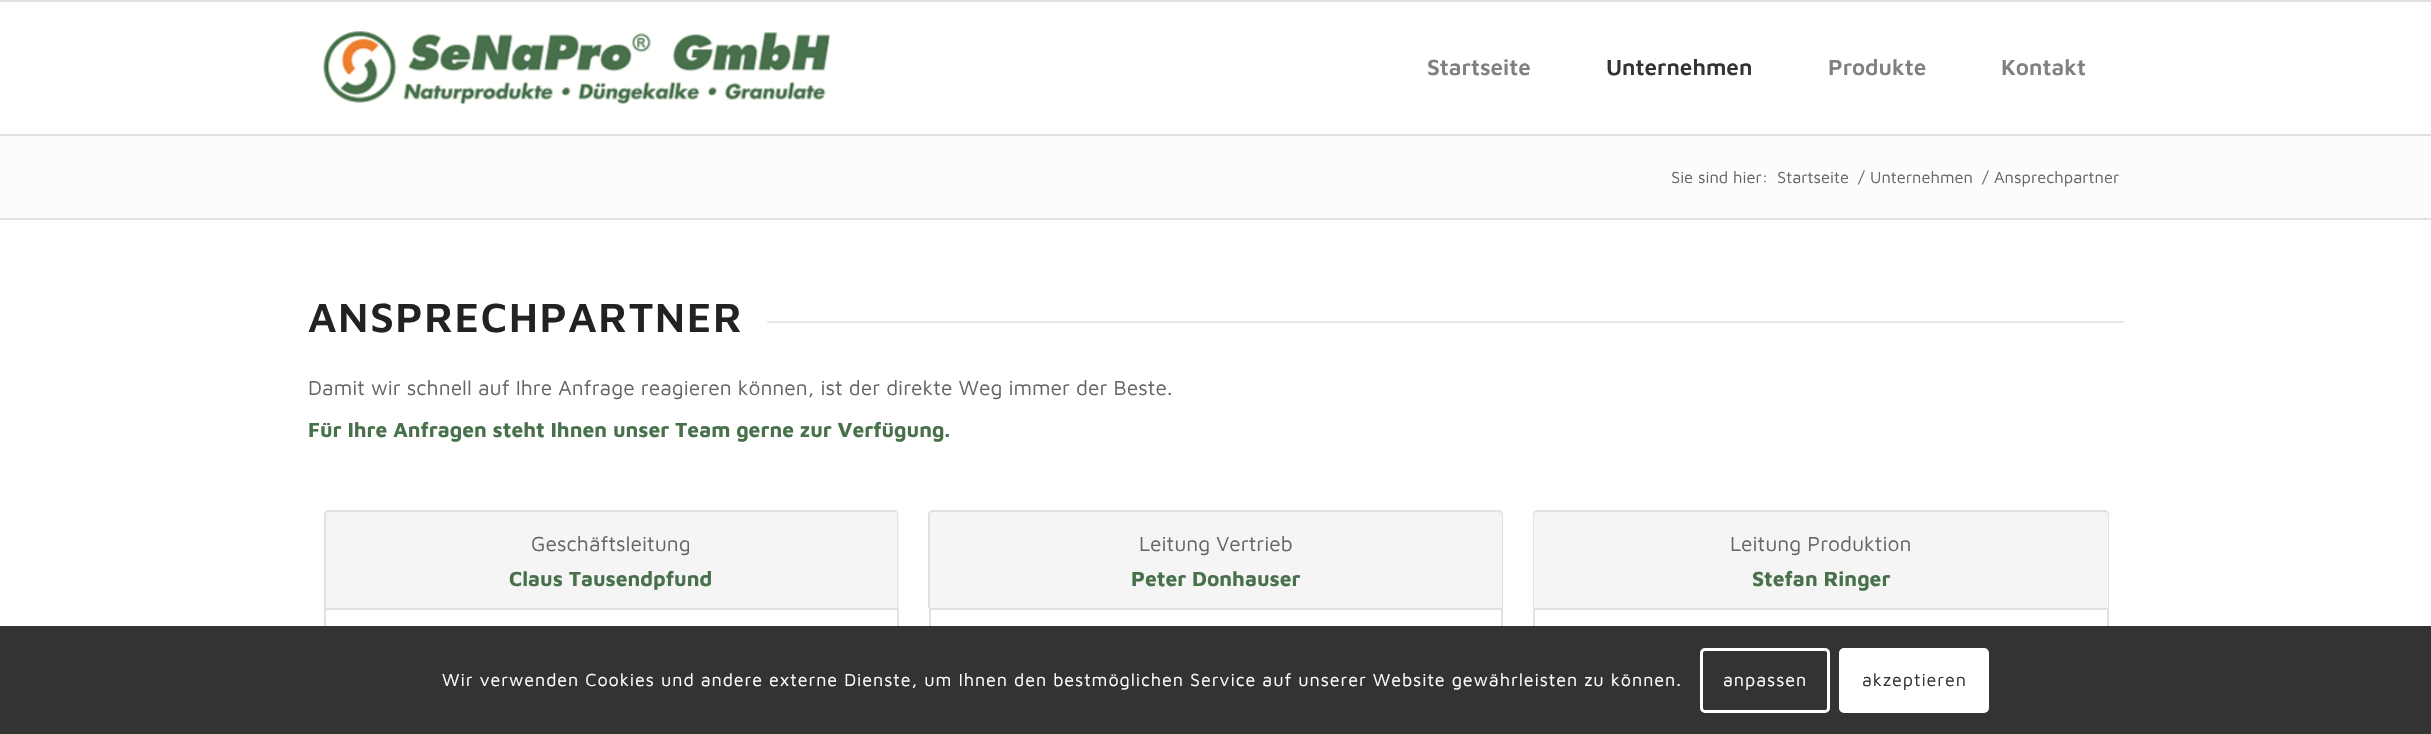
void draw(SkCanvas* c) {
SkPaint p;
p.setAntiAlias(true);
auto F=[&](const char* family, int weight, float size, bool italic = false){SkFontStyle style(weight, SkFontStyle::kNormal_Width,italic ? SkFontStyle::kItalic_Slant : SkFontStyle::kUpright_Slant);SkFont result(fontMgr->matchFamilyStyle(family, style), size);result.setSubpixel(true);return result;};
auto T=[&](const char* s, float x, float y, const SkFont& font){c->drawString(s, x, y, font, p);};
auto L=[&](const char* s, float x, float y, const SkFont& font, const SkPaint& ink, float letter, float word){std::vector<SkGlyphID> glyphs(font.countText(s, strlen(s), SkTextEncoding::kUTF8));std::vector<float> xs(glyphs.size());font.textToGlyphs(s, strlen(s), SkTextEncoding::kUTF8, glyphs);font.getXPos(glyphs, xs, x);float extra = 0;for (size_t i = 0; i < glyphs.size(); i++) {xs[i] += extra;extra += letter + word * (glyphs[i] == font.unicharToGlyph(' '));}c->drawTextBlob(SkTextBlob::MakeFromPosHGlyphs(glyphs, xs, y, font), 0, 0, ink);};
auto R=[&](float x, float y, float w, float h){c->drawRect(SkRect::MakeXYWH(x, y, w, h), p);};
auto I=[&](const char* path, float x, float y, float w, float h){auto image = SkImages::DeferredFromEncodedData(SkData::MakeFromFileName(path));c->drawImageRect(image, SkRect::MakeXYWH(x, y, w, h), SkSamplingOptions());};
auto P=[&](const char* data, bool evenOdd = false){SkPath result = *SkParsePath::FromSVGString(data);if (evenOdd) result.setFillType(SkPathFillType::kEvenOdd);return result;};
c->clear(0xffffffff);
p.setColor(0xffe1e1e1);
R(0,0,2431,2);
R(0,134,2431,2);
I("1.png",323,31,507,74);
auto f1 = F("Maven Pro",600,22.5);
p.setColor(0xff808080);
T("Startseite",1427,75,f1);
p.setColor(0xff333333);
T("Unternehmen",1606,75,f1);
p.setColor(0xff808080);
T("Produkte",1828,75,f1);
T("Kontakt",2001,75,f1);
p.setColor(0xfffcfcfc);
R(0,136,2431,82);
auto f2 = F("Maven Pro",400,16.5);
p.setColor(0xff666666);
T("Sie sind hier:",1671,183,f2);
T("Startseite",1777,183,f2);
T("/",1858,183,f2);
T("Unternehmen",1870,183,f2);
T("/",1982,183,f2);
T("Ansprechpartner",1994,183,f2);
p.setColor(0xffe1e1e1);
R(0,218,2431,2);
auto f3 = F("Maven Pro",600,42);
p.setColor(0xff222222);
L("ANSPRECHPARTNER",308,332,f3,p,1.5,0);
p.setColor(0xffe8e8e8);
R(767,321,1357,2);
auto f4 = F("Maven Pro",400,21);
p.setColor(0xff666666);
T("Damit wir schnell auf Ihre Anfrage reagieren können, ist der direkte Weg immer der Beste.",308,395,f4);
auto f5 = F("Maven Pro",700,21);
p.setColor(0xff47704b);
T("Für Ihre Anfragen steht Ihnen unser Team gerne zur Verfügung.",308,437,f5);
p.setColor(0xfff5f5f5);
c->drawPath(P("M329 510h565c3 0 5 2 5 5v93h-575v-93c0-3 2-5 5-5z"),p);
p.setColor(0xffe1e1e1);
c->drawPath(P("M328 510h566c2 0 4 2 4 4v94h-574v-94c0-2 2-4 4-4zm0 2h566c2 0 3 1 3 2v94h-571v-94c0-1 1-2 2-2z",true),p);
p.setColor(0xff666666);
T("Geschäftsleitung",531,551,f4);
p.setColor(0xff47704b);
T("Claus Tausendpfund",509,586,f5);
p.setStroke(true);
p.setStrokeWidth(2);
p.setColor(0xffe1e1e1);
c->drawRect(SkRect::MakeXYWH(325,609,573,98),p);
p.setStroke(false);
p.setColor(0xfff5f5f5);
c->drawPath(P("M934 510h564c3 0 5 2 5 5v93h-574v-93c0-3 2-5 5-5z"),p);
p.setColor(0xffe1e1e1);
c->drawPath(P("M933 510h565c3 0 5 2 5 4v94h-575v-94c0-2 3-4 5-4zm0 2h565c2 0 4 1 4 2v94h-572v-94c0-1 1-2 3-2z",true),p);
p.setColor(0xff666666);
T("Leitung Vertrieb",1139,551,f4);
p.setColor(0xff47704b);
T("Peter Donhauser",1131,586,f5);
p.setStroke(true);
p.setColor(0xffe1e1e1);
c->drawRect(SkRect::MakeXYWH(930,609,572,98),p);
p.setStroke(false);
p.setColor(0xfff5f5f5);
c->drawPath(P("M1538 510h566c3 0 5 2 5 5v93h-576v-93c0-3 2-5 5-5z"),p);
p.setColor(0xffe1e1e1);
c->drawPath(P("M1538 510h566c3 0 5 2 5 4v94h-576v-94c0-2 2-4 5-4zm0 2h566c2 0 4 1 4 2v94h-574v-94c0-1 2-2 4-2z",true),p);
p.setColor(0xff666666);
T("Leitung Produktion",1730,551,f4);
p.setColor(0xff47704b);
T("Stefan Ringer",1752,586,f5);
p.setStroke(true);
p.setColor(0xffe1e1e1);
c->drawRect(SkRect::MakeXYWH(1534,609,574,98),p);
p.setStroke(false);
p.setColor(0xff333333);
R(0,626,2431,108);
auto f6 = F("Maven Pro",400,18);
p.setColor(0xffffffff);
L("Wir verwenden Cookies und andere externe Dienste, um Ihnen den bestmöglichen Service auf unserer Website gewährleisten zu können.",442,686,f6,p,.9,0);
p.setStroke(true);
p.setStrokeWidth(3);
c->drawRoundRect(SkRect::MakeXYWH(1701.5,649.5,127,62),3.5,3.5,p);
p.setStroke(false);
L("anpassen",1723,686,f6,p,.9,0);
c->drawRoundRect(SkRect::MakeXYWH(1840.5,649.5,147,62),3.5,3.5,p);
p.setStroke(true);
c->drawRoundRect(SkRect::MakeXYWH(1840.5,649.5,147,62),3.5,3.5,p);
p.setStroke(false);
p.setColor(0xff333333);
L("akzeptieren",1862,686,f6,p,.9,0);
}
